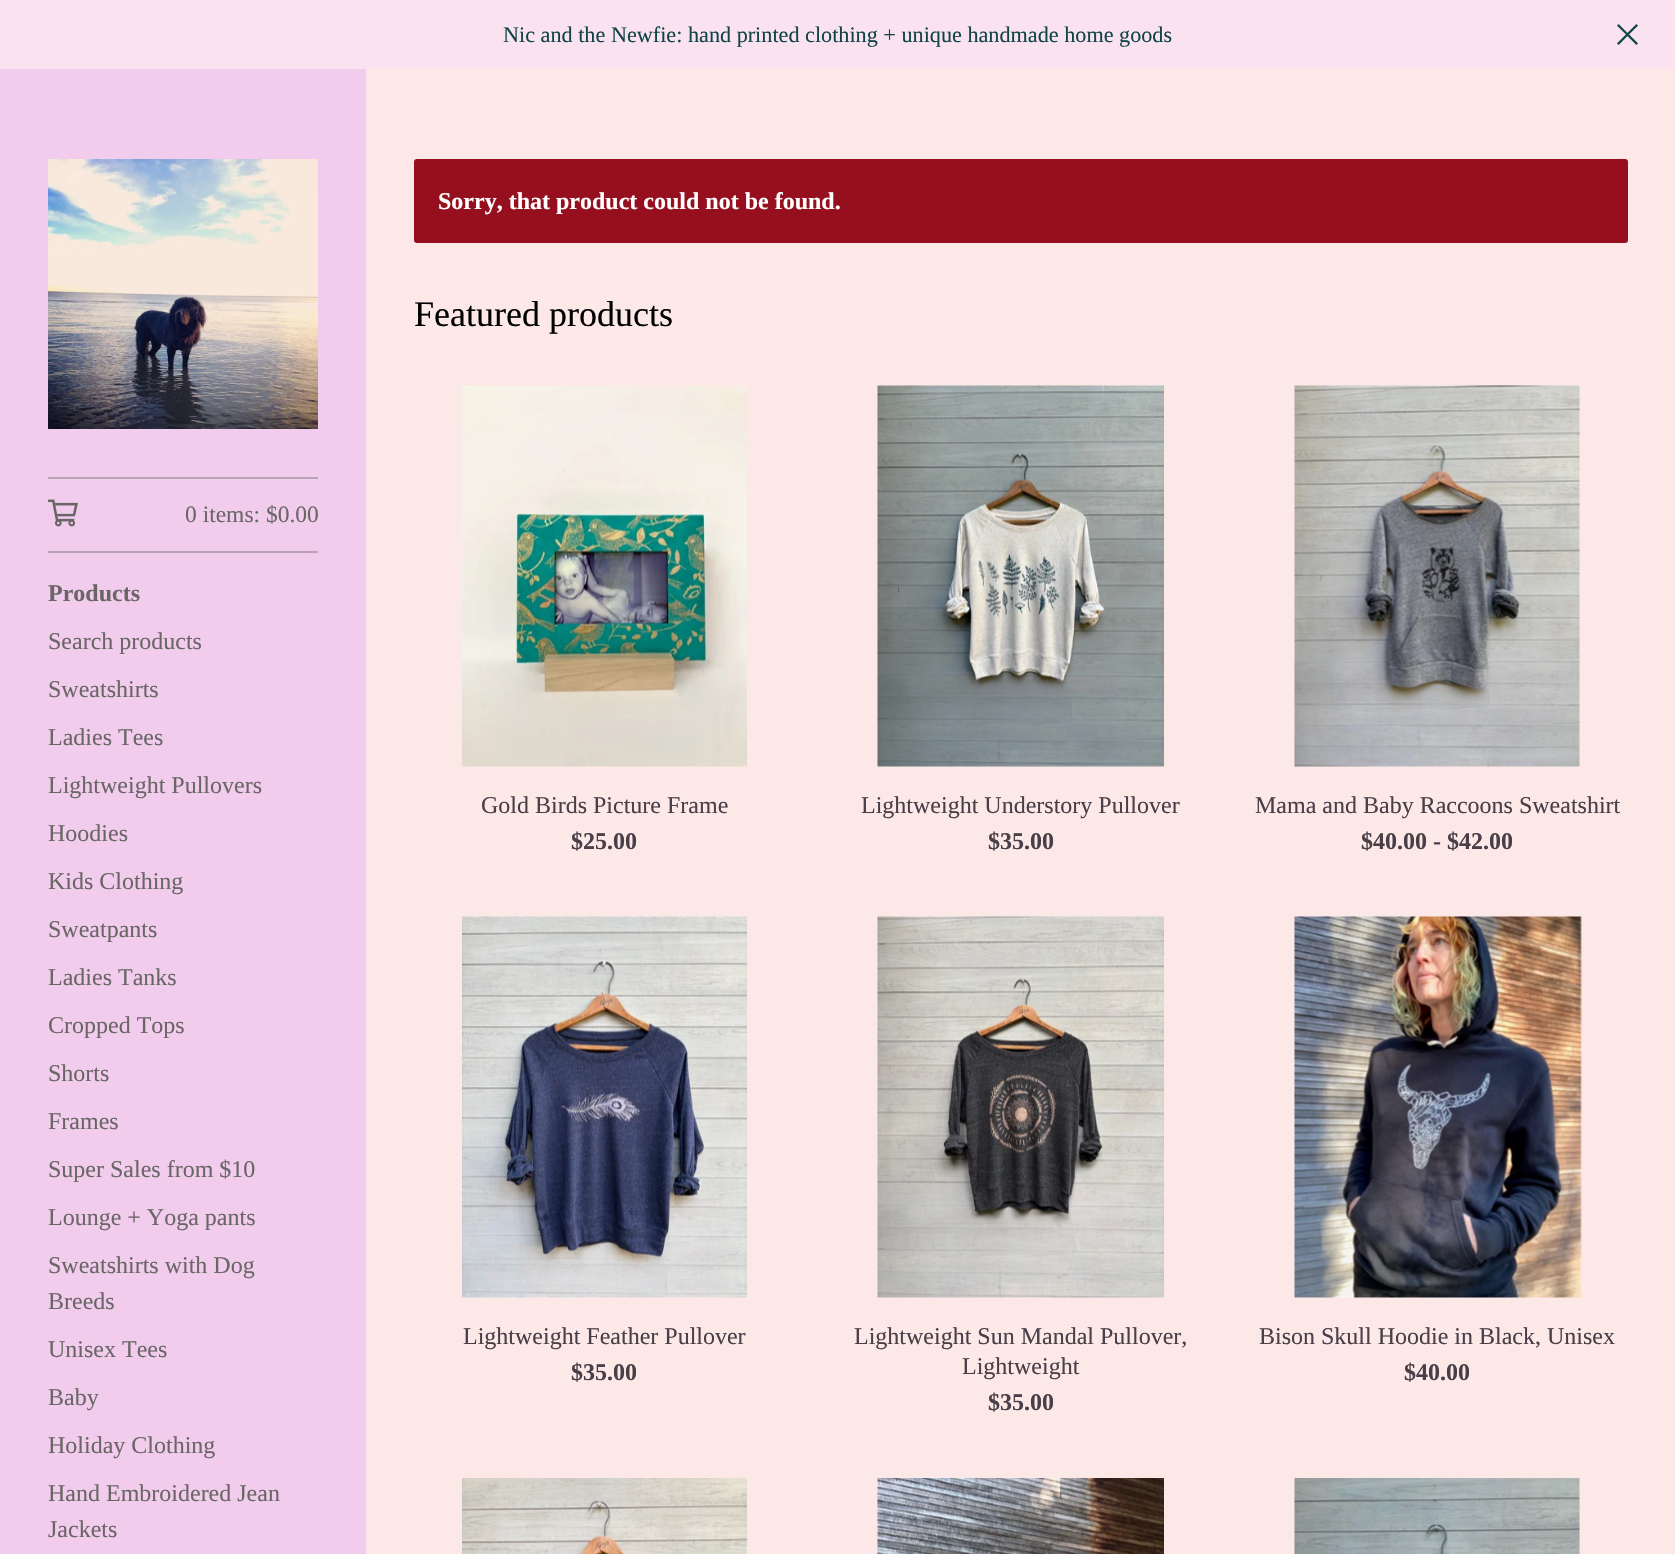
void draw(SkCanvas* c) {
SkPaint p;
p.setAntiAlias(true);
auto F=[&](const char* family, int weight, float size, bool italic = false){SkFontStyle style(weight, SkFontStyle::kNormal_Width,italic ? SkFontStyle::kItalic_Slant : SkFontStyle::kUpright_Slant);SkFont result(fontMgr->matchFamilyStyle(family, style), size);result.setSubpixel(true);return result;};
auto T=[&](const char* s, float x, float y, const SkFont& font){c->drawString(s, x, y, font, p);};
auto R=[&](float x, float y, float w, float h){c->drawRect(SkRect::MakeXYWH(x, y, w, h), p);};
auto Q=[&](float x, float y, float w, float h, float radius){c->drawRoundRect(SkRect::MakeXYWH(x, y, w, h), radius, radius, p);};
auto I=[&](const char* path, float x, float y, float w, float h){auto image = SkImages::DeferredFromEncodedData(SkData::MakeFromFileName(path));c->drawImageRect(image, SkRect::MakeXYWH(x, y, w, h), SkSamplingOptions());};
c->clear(0xfffde8e8);
p.setColor(0xfffbe2f1);
R(0,0,1675,69);
auto f1 = F("Liberation Serif",400,22.2);
p.setColor(0xff104548);
T("Nic and the Newfie: hand printed clothing + unique handmade home goods",503,42,f1);
I("1.png",1617,24,21,21);
p.setColor(0xfff1cced);
R(0,69,366,1485);
I("2.png",48,159,270,270);
p.setColor(0xffbba3b7);
R(48,477,270,2);
I("3.png",48,499,30,28);
auto f2 = F("Liberation Serif",400,23.5);
p.setColor(0xff6b6666);
T("0 items: $0.00",185,522,f2);
p.setColor(0xffbba3b7);
R(48,551,270,2);
auto f3 = F("Liberation Serif",700,24);
p.setColor(0xff6b6666);
T("Products",48,601,f3);
auto f4 = F("Liberation Serif",400,24);
T("Search products",48,649,f4);
T("Sweatshirts",48,697,f4);
T("Ladies Tees",48,745,f4);
T("Lightweight Pullovers",48,793,f4);
T("Hoodies",48,841,f4);
T("Kids Clothing",48,889,f4);
T("Sweatpants",48,937,f4);
T("Ladies Tanks",48,985,f4);
T("Cropped Tops",48,1033,f4);
T("Shorts",48,1081,f4);
T("Frames",48,1129,f4);
T("Super Sales from $10",48,1177,f4);
T("Lounge + Yoga pants",48,1225,f4);
T("Sweatshirts with Dog",48,1273,f4);
T("Breeds",48,1309,f4);
T("Unisex Tees",48,1357,f4);
T("Baby",48,1405,f4);
T("Holiday Clothing",48,1453,f4);
T("Hand Embroidered Jean",48,1501,f4);
T("Jackets",48,1537,f4);
p.setColor(0xff950f1e);
Q(414,159,1214,84,3);
p.setColor(0xffffffff);
T("Sorry, that product could not be found.",438,209,f3);
auto f5 = F("Liberation Serif",400,36);
p.setColor(0xff000000);
T("Featured products",414,326,f5);
I("4.png",462,385,285,382);
p.setColor(0xff483f48);
T("Gold Birds Picture Frame",481,813,f4);
T("$25.00",571,849,f3);
I("5.png",877,385,287,382);
T("Lightweight Understory Pullover",861,813,f4);
T("$35.00",988,849,f3);
I("6.png",1294,385,286,382);
T("Mama and Baby Raccoons Sweatshirt",1255,813,f4);
T("$40.00 - $42.00",1361,849,f3);
I("7.png",462,916,285,382);
T("Lightweight Feather Pullover",463,1344,f4);
T("$35.00",571,1380,f3);
I("8.png",877,916,287,382);
T("Lightweight Sun Mandal Pullover,",854,1344,f4);
T("Lightweight",962,1374,f4);
T("$35.00",988,1410,f3);
I("9.png",1294,916,288,382);
T("Bison Skull Hoodie in Black, Unisex",1259,1344,f4);
T("$40.00",1404,1380,f3);
I("10.png",462,1478,285,76);
I("11.png",877,1478,287,76);
I("12.png",1294,1478,286,76);
}
